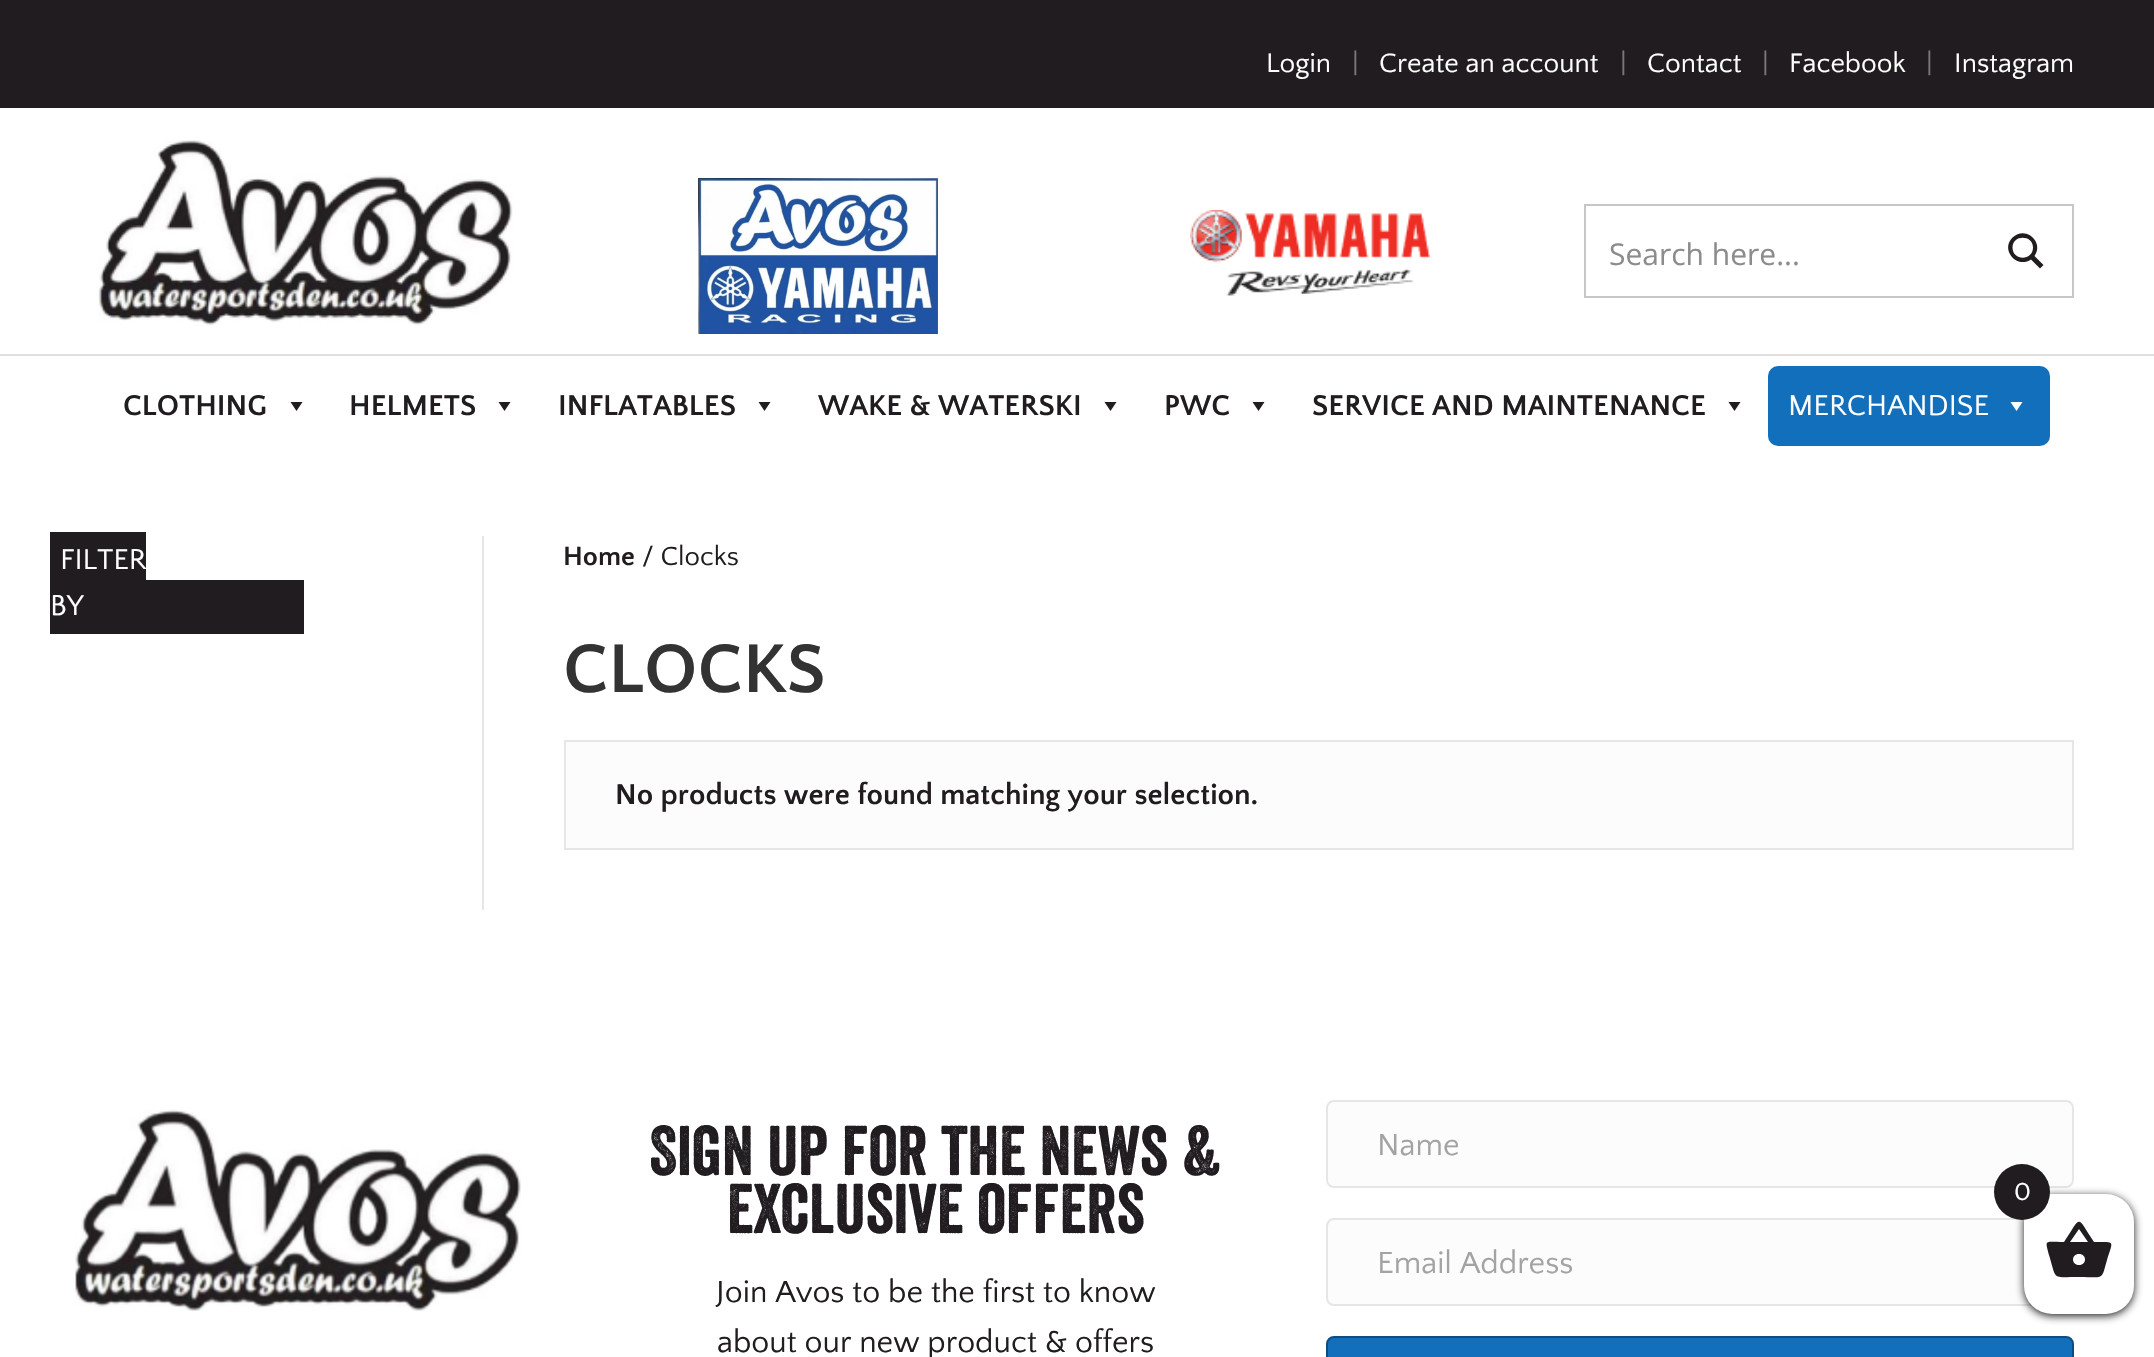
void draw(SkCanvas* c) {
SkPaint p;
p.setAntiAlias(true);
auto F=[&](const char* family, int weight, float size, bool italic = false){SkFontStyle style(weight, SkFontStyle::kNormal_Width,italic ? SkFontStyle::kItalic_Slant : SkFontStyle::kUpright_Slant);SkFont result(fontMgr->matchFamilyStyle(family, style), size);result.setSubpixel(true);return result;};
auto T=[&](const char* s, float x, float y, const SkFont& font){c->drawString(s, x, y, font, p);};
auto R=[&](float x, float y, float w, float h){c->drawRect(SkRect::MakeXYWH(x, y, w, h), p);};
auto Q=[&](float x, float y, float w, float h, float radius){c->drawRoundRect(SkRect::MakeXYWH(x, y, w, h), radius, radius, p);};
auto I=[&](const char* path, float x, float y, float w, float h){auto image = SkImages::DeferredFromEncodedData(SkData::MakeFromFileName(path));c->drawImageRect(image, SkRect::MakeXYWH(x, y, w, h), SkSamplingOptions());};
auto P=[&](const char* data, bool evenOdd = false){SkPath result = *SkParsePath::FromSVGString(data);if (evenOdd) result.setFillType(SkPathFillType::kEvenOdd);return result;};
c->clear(0xffffffff);
p.setColor(0xff211c1f);
R(0,0,2154,108);
auto f1 = F("Quattrocento Sans",400,28);
p.setColor(0xffffffff);
T("Login",1266,72,f1);
p.setColor(0xff7a7779);
T("|",1352,72,f1);
p.setColor(0xffffffff);
T("Create an account",1379,72,f1);
p.setColor(0xff7a7779);
T("|",1620,72,f1);
p.setColor(0xffffffff);
T("Contact",1647,72,f1);
p.setColor(0xff7a7779);
T("|",1762,72,f1);
p.setColor(0xffffffff);
T("Facebook",1789,72,f1);
p.setColor(0xff7a7779);
T("|",1926,72,f1);
p.setColor(0xffffffff);
T("Instagram",1954,72,f1);
I("1.png",98,140,415,186);
I("2.png",698,178,240,156);
I("3.png",1190,210,240,86);
p.setStroke(true);
p.setStrokeWidth(2);
p.setColor(0xffc7c7c7);
c->drawRect(SkRect::MakeXYWH(1585,205,488,92),p);
auto f2 = F("Open Sans",400,30);
p.setStroke(false);
p.setColor(0xff8e8b8d);
T("Search here...",1609,265,f2);
p.setColor(0xff211c1f);
c->drawPath(P("M2043.5 265l-9-9c10-14-9-31-22-18.5c-12.5 12.5 4.5 31.5 18.5 22l9 9zm-31-17.5c0-13 20.5-13 20.5 0c0 13.5-20.5 13.5-20.5 0z"),p);
p.setColor(0xffdfdfdf);
R(0,354,2154,2);
auto f3 = F("Quattrocento Sans",700,30);
p.setColor(0xff211c1f);
T("CLOTHING",123,415,f3);
c->drawPath(P("M302.5 402l-6 9l-6-9z"),p);
T("HELMETS",349,415,f3);
c->drawPath(P("M510.5 402l-6 9l-6-9z"),p);
T("INFLATABLES",558,415,f3);
c->drawPath(P("M770.5 402l-6 9l-6-9z"),p);
T("WAKE & WATERSKI",818,415,f3);
c->drawPath(P("M1116.5 402l-6 9l-6-9z"),p);
T("PWC",1164,415,f3);
c->drawPath(P("M1264.5 402l-6 9l-6-9z"),p);
T("SERVICE AND MAINTENANCE",1312,415,f3);
c->drawPath(P("M1740.5 402l-6 9l-6-9z"),p);
p.setColor(0xff116fbc);
Q(1768,366,282,80,10);
auto f4 = F("Quattrocento Sans",400,30);
p.setColor(0xffffffff);
T("MERCHANDISE",1788,415,f4);
c->drawPath(P("M2022.5 402l-6 9l-6-9z"),p);
p.setColor(0xff211c1f);
R(50,532,96,48);
p.setColor(0xffffffff);
T("FILTER",60,569,f4);
p.setColor(0xff211c1f);
R(50,580,254,54);
p.setColor(0xffffffff);
T("BY",50,615,f4);
p.setColor(0xffe6e6e6);
R(482,536,2,374);
auto f5 = F("Quattrocento Sans",700,27.5);
p.setColor(0xff211c1f);
T("Home",563,565,f5);
auto f6 = F("Quattrocento Sans",400,27.5);
T("/ Clocks",642,565,f6);
auto f7 = F("Quattrocento Sans",700,72);
p.setColor(0xff333333);
T("CLOCKS",563,692,f7);
p.setColor(0xfffcfcfc);
c->drawRect(SkRect::MakeXYWH(565,741,1508,108),p);
p.setStroke(true);
p.setColor(0xffe6e6e6);
c->drawRect(SkRect::MakeXYWH(565,741,1508,108),p);
p.setStroke(false);
p.setColor(0xff211c1f);
T("No products were found matching your selection.",615,804,f3);
I("4.png",75,1109,446,202);
auto f8 = F("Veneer",400,68);
T("Sign up for the news &",649,1175,f8);
T("exclusive offers",727,1233,f8);
auto f9 = F("Quattrocento Sans",400,32);
T("Join Avos to be the first to know",716,1302,f9);
T("about our new product & offers",717,1352,f9);
p.setColor(0xfffcfcfc);
c->drawRoundRect(SkRect::MakeXYWH(1327,1101,746,86),7,7,p);
p.setStroke(true);
p.setColor(0xffe6e6e6);
c->drawRoundRect(SkRect::MakeXYWH(1327,1101,746,86),7,7,p);
p.setStroke(false);
p.setColor(0xffa4a2a4);
T("Name",1377,1155,f9);
p.setColor(0xfffcfcfc);
c->drawRoundRect(SkRect::MakeXYWH(1327,1219,746,86),7,7,p);
p.setStroke(true);
p.setColor(0xffe6e6e6);
c->drawRoundRect(SkRect::MakeXYWH(1327,1219,746,86),7,7,p);
p.setStroke(false);
p.setColor(0xffa4a2a4);
T("Email Address",1377,1273,f9);
p.setColor(0xff116fbc);
c->drawRoundRect(SkRect::MakeXYWH(1327,1337,746,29),7,7,p);
p.setStroke(true);
p.setColor(0xff0c4e84);
c->drawRoundRect(SkRect::MakeXYWH(1327,1337,746,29),7,7,p);
p.setStroke(false);
p.setColor(0xff211c1f);
p.setMaskFilter(SkMaskFilter::MakeBlur(kNormal_SkBlurStyle, 4));
c->drawRoundRect(SkRect::MakeXYWH(2024,1196,110,120),28,28,p);
p.setMaskFilter(nullptr);
p.setColor(0xffffffff);
Q(2024,1194,110,120,28);
p.setColor(0xff211c1f);
c->drawCircle(2022,1192,28,p);
auto f10 = F("Quattrocento Sans",400,26);
p.setColor(0xffffffff);
T("0",2014,1200,f10);
p.setColor(0xff211c1f);
c->drawPath(P("M2079 1265c8 0 8-11 0-11c-8 0-8 11 0 11zm-9-23h18l-9-13zm24 0c22 0 19-2 13 18c-6 21-2 17-28 17c-28 0-22 4-30-22c-4-16-5-13 15-13c18-27 12-27 30 0z"),p);
}
